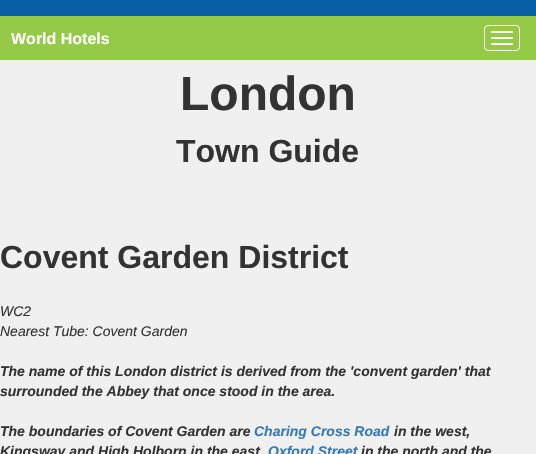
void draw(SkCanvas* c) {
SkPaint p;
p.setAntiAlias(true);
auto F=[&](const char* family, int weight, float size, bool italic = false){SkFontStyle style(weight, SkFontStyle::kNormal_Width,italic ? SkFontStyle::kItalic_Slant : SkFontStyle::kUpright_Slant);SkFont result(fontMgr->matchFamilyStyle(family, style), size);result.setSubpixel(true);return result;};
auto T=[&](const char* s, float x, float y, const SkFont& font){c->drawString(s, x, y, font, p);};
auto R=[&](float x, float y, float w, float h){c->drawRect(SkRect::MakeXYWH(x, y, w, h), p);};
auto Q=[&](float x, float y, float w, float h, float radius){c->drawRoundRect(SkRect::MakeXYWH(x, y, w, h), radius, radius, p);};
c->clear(0xfff0f0f0);
p.setColor(0xff085fa3);
R(0,0,536,16);
p.setColor(0xff95ca46);
R(0,16,536,44);
auto f1 = F("Liberation Sans",700,16);
p.setColor(0xffffffff);
T("World Hotels",11,44,f1);
p.setStroke(true);
p.setStrokeWidth(1);
c->drawRoundRect(SkRect::MakeXYWH(484.5,25.5,35,25),3.5,3.5,p);
p.setStroke(false);
Q(491,31,22,2,1);
Q(491,37,22,2,1);
Q(491,43,22,2,1);
auto f2 = F("Liberation Sans",700,48);
p.setColor(0xff333333);
T("London",180,110,f2);
auto f3 = F("Liberation Sans",700,32);
T("Town Guide",176,162,f3);
T("Covent Garden District",0,268,f3);
auto f4 = F("Liberation Sans",400,14,true);
T("WC2",0,316,f4);
T("Nearest Tube: Covent Garden",0,336,f4);
auto f5 = F("Liberation Sans",700,14,true);
T("The name of this London district is derived from the 'convent garden' that",0,376,f5);
T("surrounded the Abbey that once stood in the area.",0,396,f5);
T("The boundaries of Covent Garden are",0,436,f5);
p.setColor(0xff337ab7);
T("Charing Cross Road",254,436,f5);
p.setColor(0xff333333);
T("in the west,",394,436,f5);
T("Kingsway and High Holborn in the east,",0,456,f5);
p.setColor(0xff337ab7);
T("Oxford Street",268,456,f5);
p.setColor(0xff333333);
T("in the north and the",361,456,f5);
}
